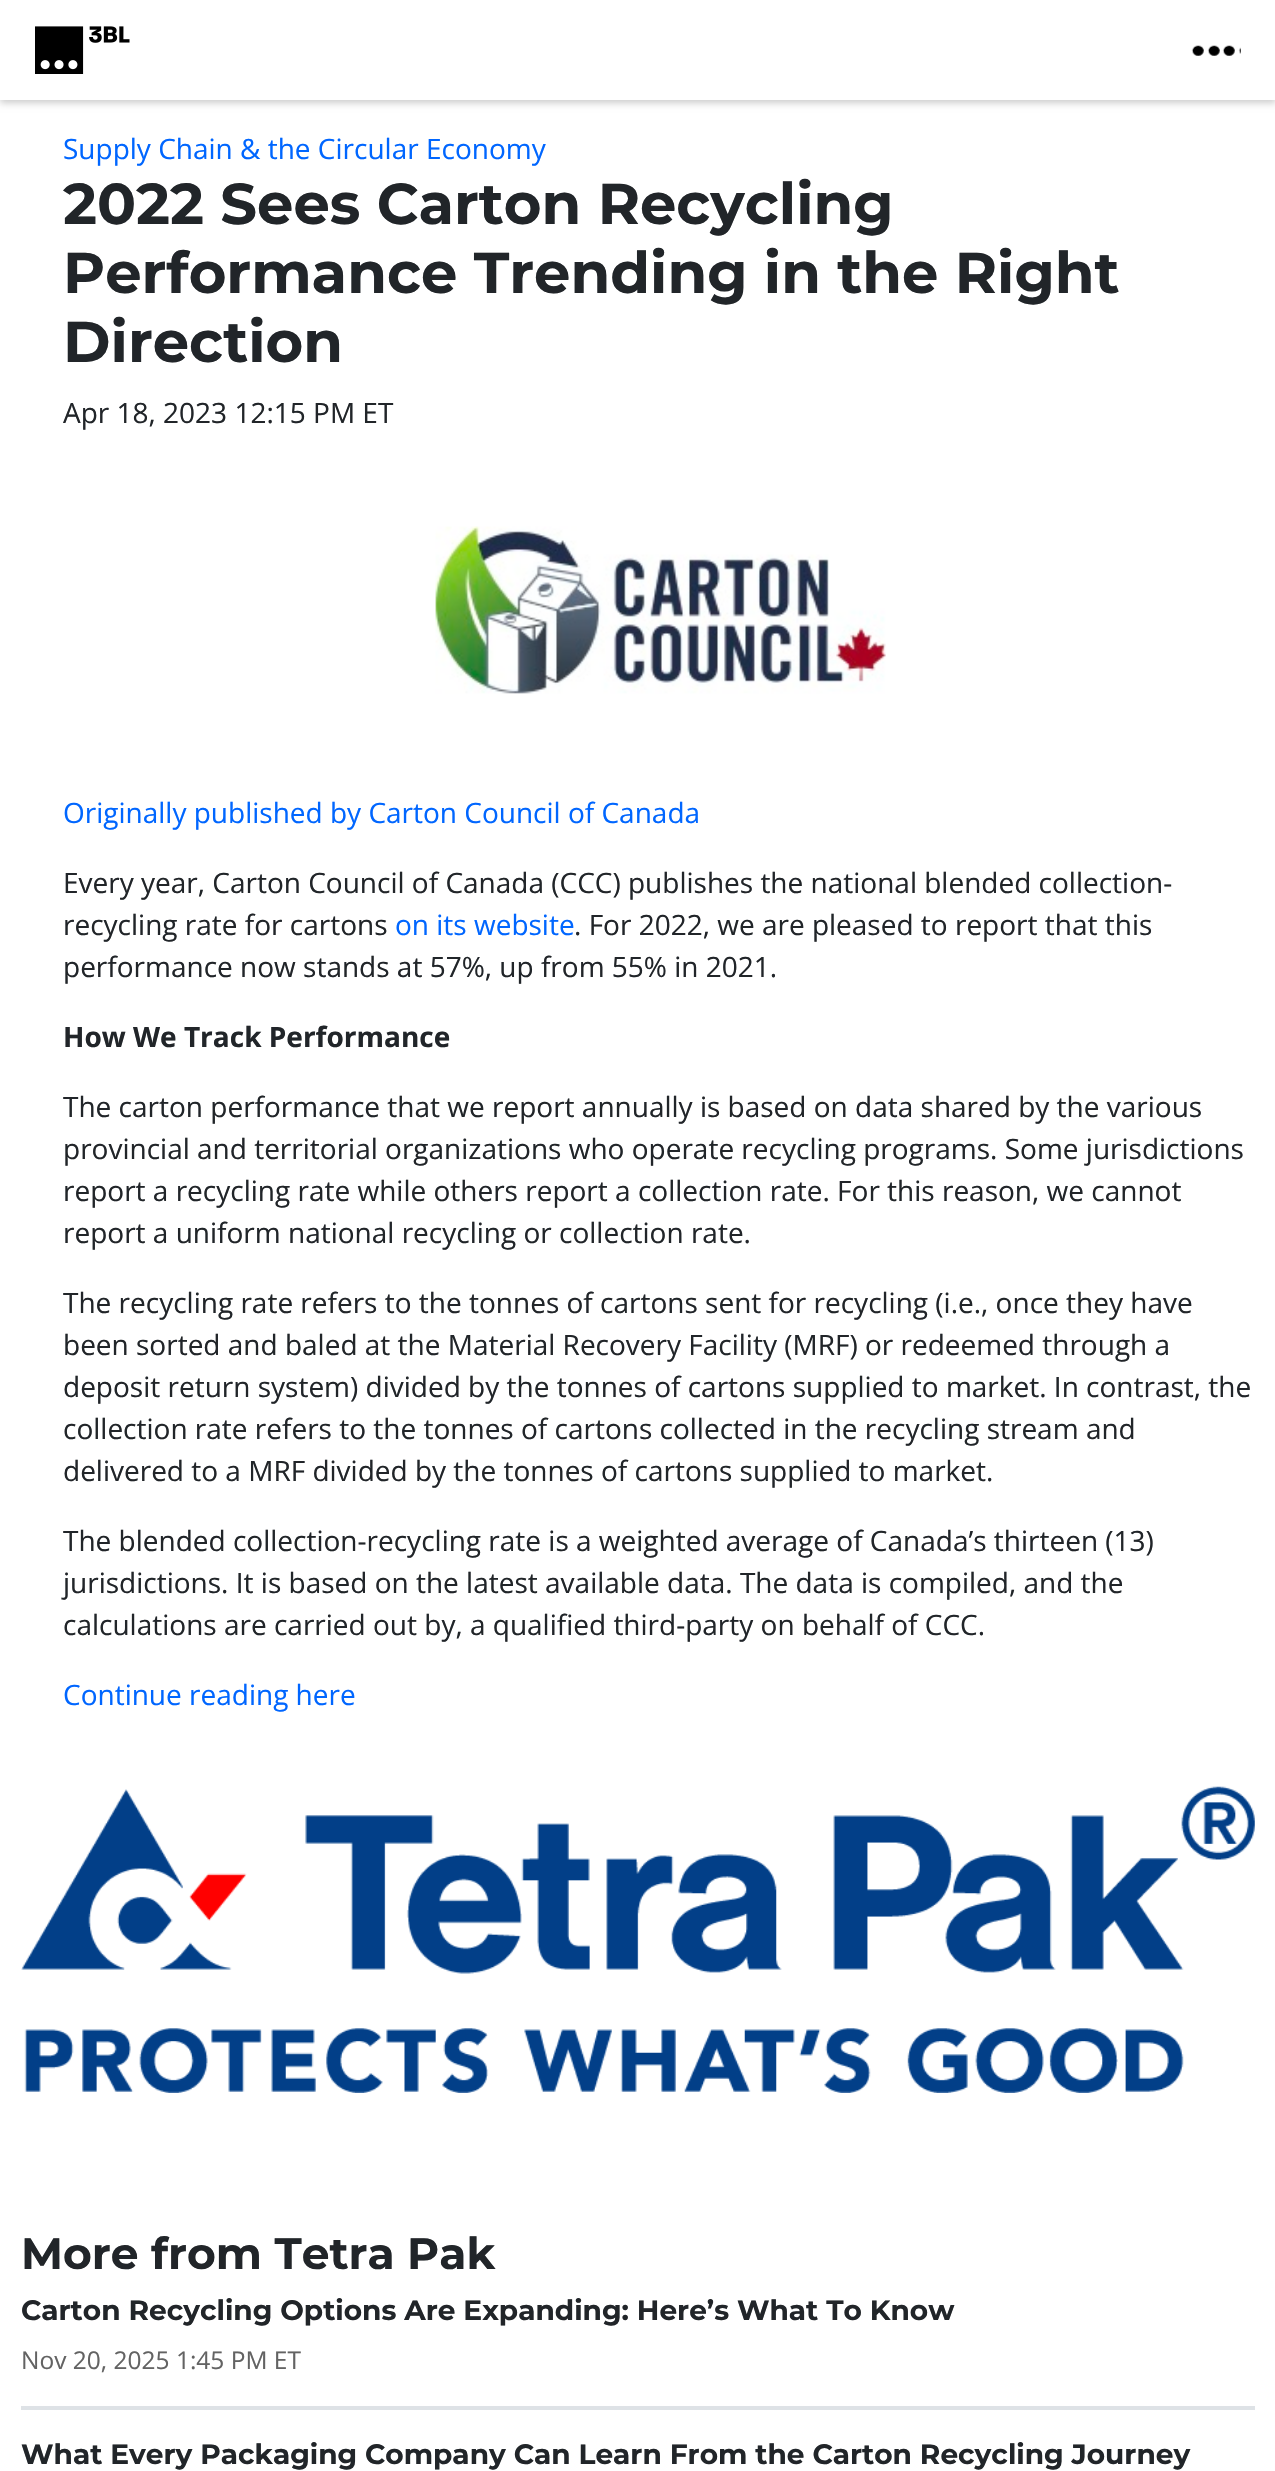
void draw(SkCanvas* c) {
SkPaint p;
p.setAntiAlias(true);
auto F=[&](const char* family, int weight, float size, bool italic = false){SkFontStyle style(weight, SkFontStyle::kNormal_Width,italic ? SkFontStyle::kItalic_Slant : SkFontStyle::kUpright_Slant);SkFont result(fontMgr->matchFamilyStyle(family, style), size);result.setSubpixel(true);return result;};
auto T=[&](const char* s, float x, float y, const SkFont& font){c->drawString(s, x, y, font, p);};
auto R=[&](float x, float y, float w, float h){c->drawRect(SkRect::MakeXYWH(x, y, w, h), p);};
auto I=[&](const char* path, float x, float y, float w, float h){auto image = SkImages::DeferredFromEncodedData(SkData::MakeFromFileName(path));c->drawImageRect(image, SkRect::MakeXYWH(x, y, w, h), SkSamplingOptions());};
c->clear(0xffffffff);
p.setColor(0x33000000);
p.setMaskFilter(SkMaskFilter::MakeBlur(kNormal_SkBlurStyle, 3.5));
c->drawRect(SkRect::MakeXYWH(0,4,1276,99),p);
p.setMaskFilter(nullptr);
p.setColor(0xffffffff);
R(0,0,1275,100);
I("1.png",35,26,95,48);
I("2.png",1191,45,50,11);
auto f1 = F("Open Sans",400,28);
p.setColor(0xff0066ff);
T("Supply Chain & the Circular Economy",63,159,f1);
auto f2 = F("Montserrat",700,57.6);
p.setColor(0xff212529);
T("2022 Sees Carton Recycling",63,224,f2);
T("Performance Trending in the Right",63,293,f2);
T("Direction",63,362,f2);
T("Apr 18, 2023 12:15 PM ET",63,423,f1);
I("3.png",435,526,451,168);
p.setColor(0xff0066ff);
T("Originally published by Carton Council of Canada",63,823,f1);
p.setColor(0xff212529);
T("Every year, Carton Council of Canada (CCC) publishes the national blended collection-",63,893,f1);
T("recycling rate for cartons",63,935,f1);
p.setColor(0xff0066ff);
T("on its website",395,935,f1);
p.setColor(0xff212529);
T(". For 2022, we are pleased to report that this",574,935,f1);
T("performance now stands at 57%, up from 55% in 2021.",63,977,f1);
auto f3 = F("Open Sans",700,28);
T("How We Track Performance",63,1047,f3);
T("The carton performance that we report annually is based on data shared by the various",63,1117,f1);
T("provincial and territorial organizations who operate recycling programs. Some jurisdictions",63,1159,f1);
T("report a recycling rate while others report a collection rate. For this reason, we cannot",63,1201,f1);
T("report a uniform national recycling or collection rate.",63,1243,f1);
T("The recycling rate refers to the tonnes of cartons sent for recycling (i.e., once they have",63,1313,f1);
T("been sorted and baled at the Material Recovery Facility (MRF) or redeemed through a",63,1355,f1);
T("deposit return system) divided by the tonnes of cartons supplied to market. In contrast, the",63,1397,f1);
T("collection rate refers to the tonnes of cartons collected in the recycling stream and",63,1439,f1);
T("delivered to a MRF divided by the tonnes of cartons supplied to market.",63,1481,f1);
T("The blended collection-recycling rate is a weighted average of Canada’s thirteen (13)",63,1551,f1);
T("jurisdictions. It is based on the latest available data. The data is compiled, and the",63,1593,f1);
T("calculations are carried out by, a qualified third-party on behalf of CCC.",63,1635,f1);
p.setColor(0xff0066ff);
T("Continue reading here",63,1705,f1);
I("4.png",21,1786,1234,307);
auto f4 = F("Montserrat",700,44);
p.setColor(0xff212529);
T("More from Tetra Pak",21,2269,f4);
p.setColor(0xffdee2e6);
R(21,2406,1234,4);
auto f5 = F("Montserrat",700,28);
p.setColor(0xff212529);
T("Carton Recycling Options Are Expanding: Here’s What To Know",21,2320,f5);
auto f6 = F("Open Sans",400,24.5);
p.setColor(0xff636363);
T("Nov 20, 2025 1:45 PM ET",21,2369,f6);
p.setColor(0xff212529);
T("What Every Packaging Company Can Learn From the Carton Recycling Journey",21,2464,f5);
}
